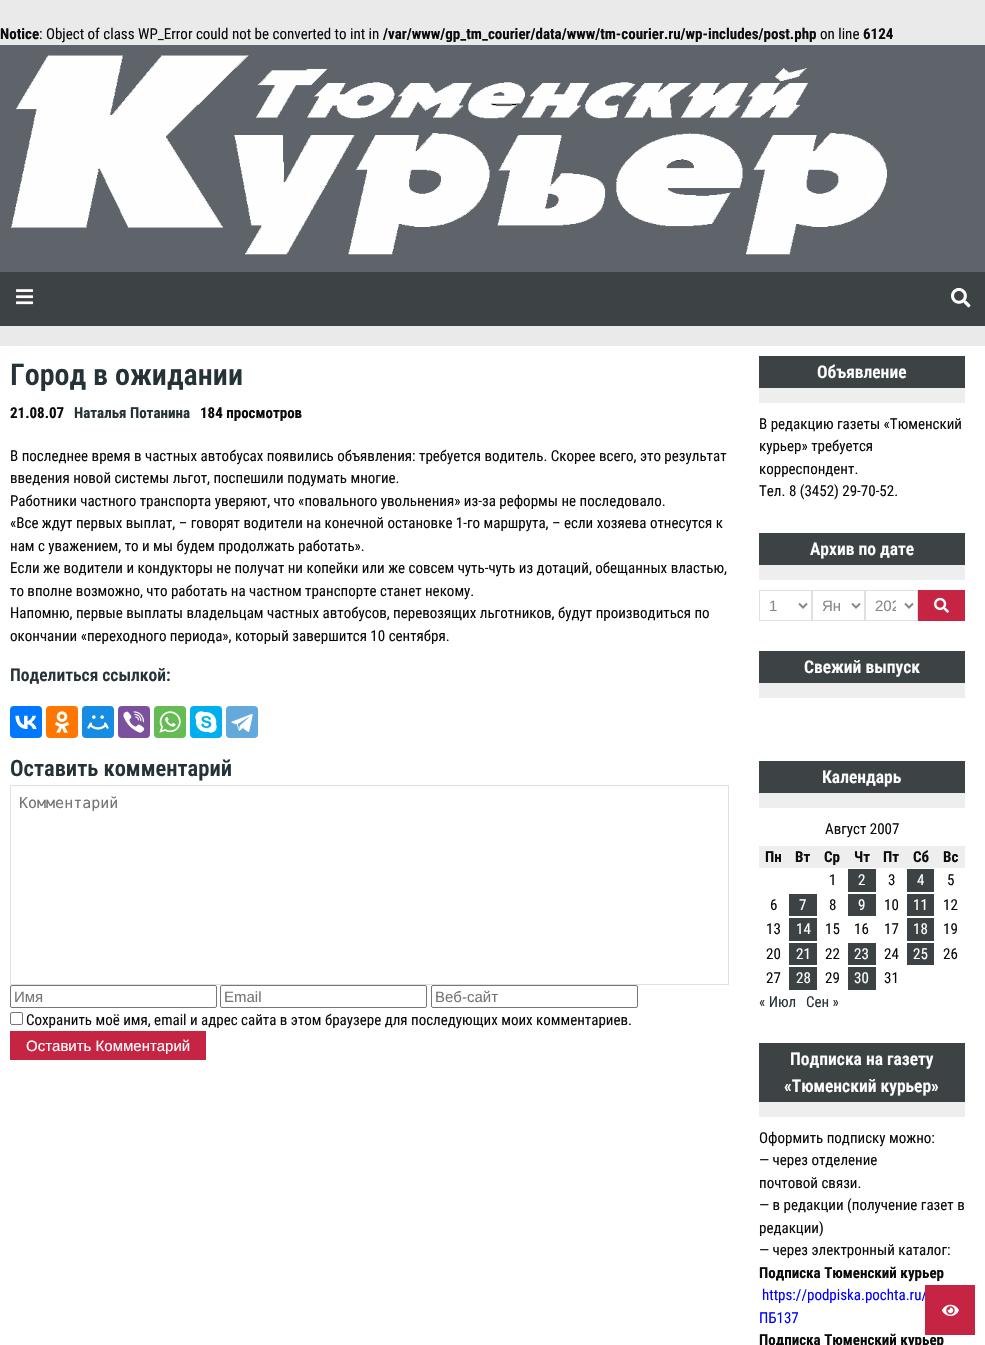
void draw(SkCanvas* c) {
SkPaint p;
p.setAntiAlias(true);
auto F=[&](const char* family, int weight, float size, bool italic = false){SkFontStyle style(weight, SkFontStyle::kNormal_Width,italic ? SkFontStyle::kItalic_Slant : SkFontStyle::kUpright_Slant);SkFont result(fontMgr->matchFamilyStyle(family, style), size);result.setSubpixel(true);return result;};
auto T=[&](const char* s, float x, float y, const SkFont& font){c->drawString(s, x, y, font, p);};
auto R=[&](float x, float y, float w, float h){c->drawRect(SkRect::MakeXYWH(x, y, w, h), p);};
auto Q=[&](float x, float y, float w, float h, float radius){c->drawRoundRect(SkRect::MakeXYWH(x, y, w, h), radius, radius, p);};
auto I=[&](const char* path, float x, float y, float w, float h){auto image = SkImages::DeferredFromEncodedData(SkData::MakeFromFileName(path));c->drawImageRect(image, SkRect::MakeXYWH(x, y, w, h), SkSamplingOptions());};
auto P=[&](const char* data, bool evenOdd = false){SkPath result = *SkParsePath::FromSVGString(data);if (evenOdd) result.setFillType(SkPathFillType::kEvenOdd);return result;};
c->clear(0xffeaeaea);
auto f1 = F("Roboto Condensed",700,15);
p.setColor(0xff0c0c0c);
T("Notice",0,39,f1);
auto f2 = F("Roboto Condensed",400,15);
T(": Object of class WP_Error could not be converted to int in",39,39,f2);
T("/var/www/gp_tm_courier/data/www/tm-courier.ru/wp-includes/post.php",383,39,f1);
T("on line",820,39,f2);
T("6124",863,39,f1);
p.setColor(0xff3d4244);
R(0,272,985,54);
p.setColor(0xff5e6469);
R(0,45,985,227);
I("1.png",11,55,876,200);
I("2.png",16,289,18,16);
I("3.png",951,287,20,21);
p.setColor(0xffffffff);
R(0,346,985,999);
auto f3 = F("Roboto Condensed",600,30);
p.setColor(0xff253237);
T("Город в ожидании",10,385,f3);
p.setColor(0xff0c0c0c);
T("21.08.07",10,418,f1);
p.setColor(0xff253237);
T("Наталья Потанина",74,418,f1);
p.setColor(0xff0c0c0c);
T("184 просмотров",200,418,f1);
T("В последнее время в частных автобусах появились объявления: требуется водитель. Скорее всего, это результат",10,461,f2);
T("введения новой системы льгот, поспешили подумать многие.",10,483,f2);
T("Работники частного транспорта уверяют, что «повального увольнения» из-за реформы не последовало.",10,506,f2);
T("«Все ждут первых выплат, – говорят водители на конечной остановке 1-го маршрута, – если хозяева отнесутся к",10,528,f2);
T("нам с уважением, то и мы будем продолжать работать».",10,551,f2);
T("Если же водители и кондукторы не получат ни копейки или же совсем чуть-чуть из дотаций, обещанных властью,",10,573,f2);
T("то вполне возможно, что работать на частном транспорте станет некому.",10,596,f2);
T("Напомню, первые выплаты владельцам частных автобусов, перевозящих льготников, будут производиться по",10,618,f2);
T("окончании «переходного периода», который завершится 10 сентября.",10,641,f2);
auto f4 = F("Roboto Condensed",600,17.5);
p.setColor(0xff253237);
T("Поделиться ссылкой:",10,681,f4);
p.setColor(0xff0077ff);
Q(10,706,32,32,4);
I("4.png",15,715,22,15);
p.setColor(0xffff7700);
Q(46,706,32,32,4);
I("5.png",54,711,16,22);
p.setColor(0xff168de2);
Q(82,706,32,32,4);
I("6.png",87,715,22,15);
p.setColor(0xff7b519d);
Q(118,706,32,32,4);
I("7.png",123,711,22,22);
p.setColor(0xff65bc54);
Q(154,706,32,32,4);
I("8.png",159,711,22,22);
p.setColor(0xff00aff0);
Q(190,706,32,32,4);
I("9.png",195,711,22,22);
p.setColor(0xff64a9dc);
Q(226,706,32,32,4);
I("10.png",231,714,22,18);
auto f5 = F("Roboto Condensed",600,22.5);
p.setColor(0xff253237);
T("Оставить комментарий",10,776,f5);
p.setStroke(true);
p.setStrokeWidth(1);
p.setColor(0xffe0e0e0);
c->drawRect(SkRect::MakeXYWH(10.5,785.5,718,199),p);
auto f6 = F("DejaVu Sans Mono",400,15);
p.setStroke(false);
p.setColor(0xff757575);
T("Комментарий",19,808,f6);
p.setStroke(true);
p.setColor(0xff767676);
c->drawRoundRect(SkRect::MakeXYWH(10.5,985.5,206,22),1.5,1.5,p);
auto f7 = F("Liberation Sans",400,15);
p.setStroke(false);
p.setColor(0xff757575);
T("Имя",14,1002,f7);
p.setStroke(true);
p.setColor(0xff767676);
c->drawRoundRect(SkRect::MakeXYWH(220.5,985.5,206,22),1.5,1.5,p);
p.setStroke(false);
p.setColor(0xff757575);
T("Email",224,1002,f7);
p.setStroke(true);
p.setColor(0xff767676);
c->drawRoundRect(SkRect::MakeXYWH(431.5,985.5,206,22),1.5,1.5,p);
p.setStroke(false);
p.setColor(0xff757575);
T("Веб-сайт",435,1002,f7);
p.setStroke(true);
p.setColor(0xff767676);
c->drawRoundRect(SkRect::MakeXYWH(10.5,1012.5,12,12),1.5,1.5,p);
p.setStroke(false);
p.setColor(0xff0c0c0c);
T("Сохранить моё имя, email и адрес сайта в этом браузере для последующих моих комментариев.",26,1025,f2);
p.setColor(0xffc52443);
R(10,1031,196,29);
p.setColor(0xffffffff);
T("Оставить Комментарий",26,1051,f7);
p.setColor(0xff3d4244);
R(759,356,206,32);
p.setColor(0xffeeeeee);
R(759,388,206,15);
p.setColor(0xffffffff);
T("Объявление",817,378,f4);
p.setColor(0xff0c0c0c);
T("В редакцию газеты «Тюменский",759,429,f2);
T("курьер» требуется",759,451,f2);
T("корреспондент.",759,474,f2);
T("Тел. 8 (3452) 29-70-52.",759,496,f2);
p.setColor(0xff3d4244);
R(759,533,206,32);
p.setColor(0xffeeeeee);
R(759,565,206,15);
p.setColor(0xffffffff);
T("Архив по дате",810,555,f4);
p.setStroke(true);
p.setColor(0xffe0e0e0);
c->drawRect(SkRect::MakeXYWH(759.5,590.5,52,30),p);
p.setStrokeWidth(2);
p.setColor(0xff888888);
c->drawPath(P("M799 603.5l4 4l4-4"),p);
p.setStroke(false);
T("1",769,611,f7);
p.setStroke(true);
p.setStrokeWidth(1);
p.setColor(0xffe0e0e0);
c->drawRect(SkRect::MakeXYWH(812.5,590.5,52,30),p);
p.setStrokeWidth(2);
p.setColor(0xff888888);
c->drawPath(P("M852 603.5l4 4l4-4"),p);
p.setStroke(false);
T("Ян",822,611,f7);
p.setStroke(true);
p.setStrokeWidth(1);
p.setColor(0xffe0e0e0);
c->drawRect(SkRect::MakeXYWH(865.5,590.5,52,30),p);
p.setStrokeWidth(2);
p.setColor(0xff888888);
c->drawPath(P("M905 603.5l4 4l4-4"),p);
c->save();
c->clipRect(SkRect::MakeXYWH(875,596,21,19));
p.setStroke(false);
T("202",875,611,f7);
c->restore();
p.setColor(0xffc52443);
R(918,590,47,31);
I("11.png",934,597,15,16);
p.setColor(0xff3d4244);
R(759,651,206,32);
p.setColor(0xffeeeeee);
R(759,683,206,15);
p.setColor(0xffffffff);
T("Свежий выпуск",804,673,f4);
p.setColor(0xff3d4244);
R(759,761,206,32);
p.setColor(0xffeeeeee);
R(759,793,206,15);
p.setColor(0xffffffff);
T("Календарь",822,783,f4);
p.setColor(0xff0c0c0c);
T("Август 2007",825,834,f2);
p.setColor(0xffeeeeee);
R(759,846,206,22);
p.setColor(0xff0c0c0c);
T("Пн",765,862,f1);
T("Вт",795,862,f1);
T("Ср",824,862,f1);
T("Чт",854,862,f1);
T("Пт",883,862,f1);
T("Сб",913,862,f1);
T("Вс",943,862,f1);
T("1",829,885,f2);
p.setColor(0xff3d4244);
R(848,869,28,23);
p.setColor(0xffffffff);
T("2",858,885,f2);
p.setColor(0xff0c0c0c);
T("3",888,885,f2);
p.setColor(0xff3d4244);
R(907,869,27,23);
p.setColor(0xffffffff);
T("4",917,885,f2);
p.setColor(0xff0c0c0c);
T("5",947,885,f2);
T("6",770,910,f2);
p.setColor(0xff3d4244);
R(789,894,28,22);
p.setColor(0xffffffff);
T("7",799,910,f2);
p.setColor(0xff0c0c0c);
T("8",829,910,f2);
p.setColor(0xff3d4244);
R(848,894,28,22);
p.setColor(0xffffffff);
T("9",858,910,f2);
p.setColor(0xff0c0c0c);
T("10",884,910,f2);
p.setColor(0xff3d4244);
R(907,894,27,22);
p.setColor(0xffffffff);
T("11",913,910,f2);
p.setColor(0xff0c0c0c);
T("12",943,910,f2);
T("13",766,934,f2);
p.setColor(0xff3d4244);
R(789,918,28,23);
p.setColor(0xffffffff);
T("14",796,934,f2);
p.setColor(0xff0c0c0c);
T("15",825,934,f2);
T("16",854,934,f2);
T("17",884,934,f2);
p.setColor(0xff3d4244);
R(907,918,27,23);
p.setColor(0xffffffff);
T("18",913,934,f2);
p.setColor(0xff0c0c0c);
T("19",943,934,f2);
T("20",766,959,f2);
p.setColor(0xff3d4244);
R(789,943,28,22);
p.setColor(0xffffffff);
T("21",796,959,f2);
p.setColor(0xff0c0c0c);
T("22",825,959,f2);
p.setColor(0xff3d4244);
R(848,943,28,22);
p.setColor(0xffffffff);
T("23",854,959,f2);
p.setColor(0xff0c0c0c);
T("24",884,959,f2);
p.setColor(0xff3d4244);
R(907,943,27,22);
p.setColor(0xffffffff);
T("25",913,959,f2);
p.setColor(0xff0c0c0c);
T("26",943,959,f2);
T("27",766,983,f2);
p.setColor(0xff3d4244);
R(789,967,28,23);
p.setColor(0xffffffff);
T("28",796,983,f2);
p.setColor(0xff0c0c0c);
T("29",825,983,f2);
p.setColor(0xff3d4244);
R(848,967,28,23);
p.setColor(0xffffffff);
T("30",854,983,f2);
p.setColor(0xff0c0c0c);
T("31",884,983,f2);
p.setColor(0xff253237);
T("« Июл",759,1007,f2);
T("Сен »",806,1007,f2);
p.setColor(0xff3d4244);
R(759,1043,206,59);
p.setColor(0xffeeeeee);
R(759,1102,206,15);
p.setColor(0xffffffff);
T("Подписка на газету",790,1065,f4);
T("«Тюменский курьер»",784,1092,f4);
p.setColor(0xff0c0c0c);
T("Оформить подписку можно:",759,1143,f2);
T("— через отделение",759,1165,f2);
T("почтовой связи.",759,1188,f2);
T("— в редакции (получение газет в",759,1210,f2);
T("редакции)",759,1233,f2);
T("— через электронный каталог:",759,1255,f2);
T("Подписка Тюменский курьер",759,1278,f1);
p.setColor(0xff0000ff);
T("https://podpiska.pochta.ru/",762,1300,f2);
T("ПБ137",759,1323,f2);
p.setColor(0xff0c0c0c);
T("Подписка Тюменский курьер",759,1345,f1);
p.setColor(0xffc52443);
R(925,1285,50,50);
I("12.png",942,1304,17,12);
}
